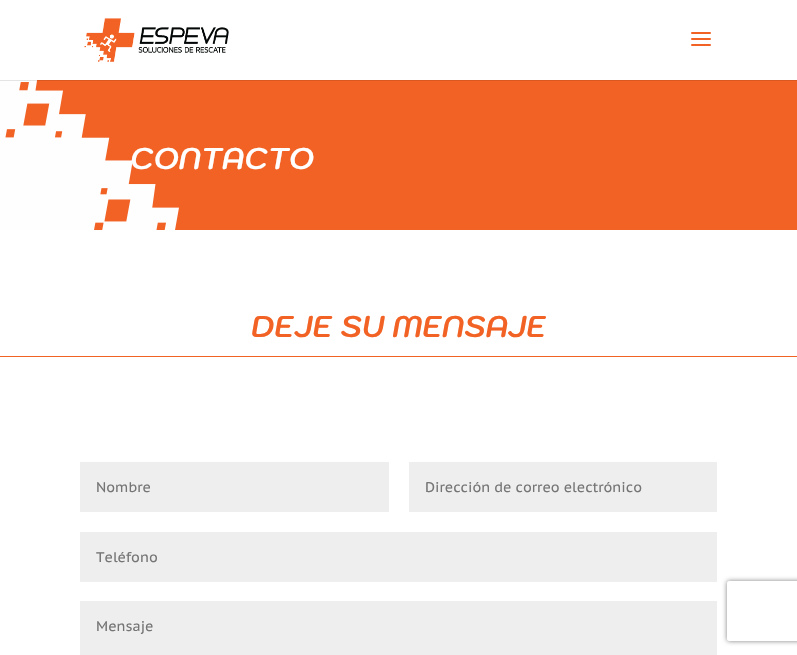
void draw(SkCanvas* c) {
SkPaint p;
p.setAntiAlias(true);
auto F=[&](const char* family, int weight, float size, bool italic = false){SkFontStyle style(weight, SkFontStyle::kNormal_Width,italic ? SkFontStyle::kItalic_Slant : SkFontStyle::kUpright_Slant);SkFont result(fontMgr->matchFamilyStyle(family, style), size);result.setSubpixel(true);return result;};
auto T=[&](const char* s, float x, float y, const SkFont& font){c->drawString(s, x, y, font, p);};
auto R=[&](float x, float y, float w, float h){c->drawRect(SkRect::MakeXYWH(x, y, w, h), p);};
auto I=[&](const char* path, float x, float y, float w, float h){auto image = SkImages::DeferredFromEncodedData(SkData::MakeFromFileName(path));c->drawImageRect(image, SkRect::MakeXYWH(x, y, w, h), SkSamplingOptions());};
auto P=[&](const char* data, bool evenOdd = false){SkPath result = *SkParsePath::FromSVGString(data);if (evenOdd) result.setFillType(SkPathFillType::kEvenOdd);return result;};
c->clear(0xffffffff);
p.setColor(0xfff26225);
R(5,80,792,150);
I("3.png",0,80,179,150);
p.setColor(0x1a000000);
R(0,80,797,1);
I("1.png",84,18,145,44);
I("2.png",691,32,20,14);
auto f1 = F("Kodchasan",700,30,true);
p.setColor(0xffffffff);
T("CONTACTO",130,169,f1);
p.setColor(0xfff26225);
T("DEJE SU MENSAJE",251,337,f1);
R(0,356,797,1);
p.setColor(0xffeeeeee);
R(80,462,309,50);
auto f2 = F("PT Sans Caption",400,14);
p.setColor(0xff757575);
T("Nombre",96,492,f2);
p.setColor(0xffeeeeee);
R(409,462,308,50);
p.setColor(0xff757575);
T("Dirección de correo electrónico",425,492,f2);
p.setColor(0xffeeeeee);
R(80,532,637,50);
p.setColor(0xff757575);
T("Teléfono",96,562,f2);
p.setColor(0xffeeeeee);
R(80,601,637,54);
p.setColor(0xff757575);
T("Mensaje",96,631,f2);
c->save();
c->clipPath(P("M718 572h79v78h-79zm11 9h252c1 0 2 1 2 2v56c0 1-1 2-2 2h-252c-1 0-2-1-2-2v-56c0-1 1-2 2-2z",true),true);
p.setColor(0xff808080);
p.setMaskFilter(SkMaskFilter::MakeBlur(kNormal_SkBlurStyle, 2.5));
c->drawRoundRect(SkRect::MakeXYWH(727,581,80,60),2,2,p);
p.setMaskFilter(nullptr);
c->restore();
}
